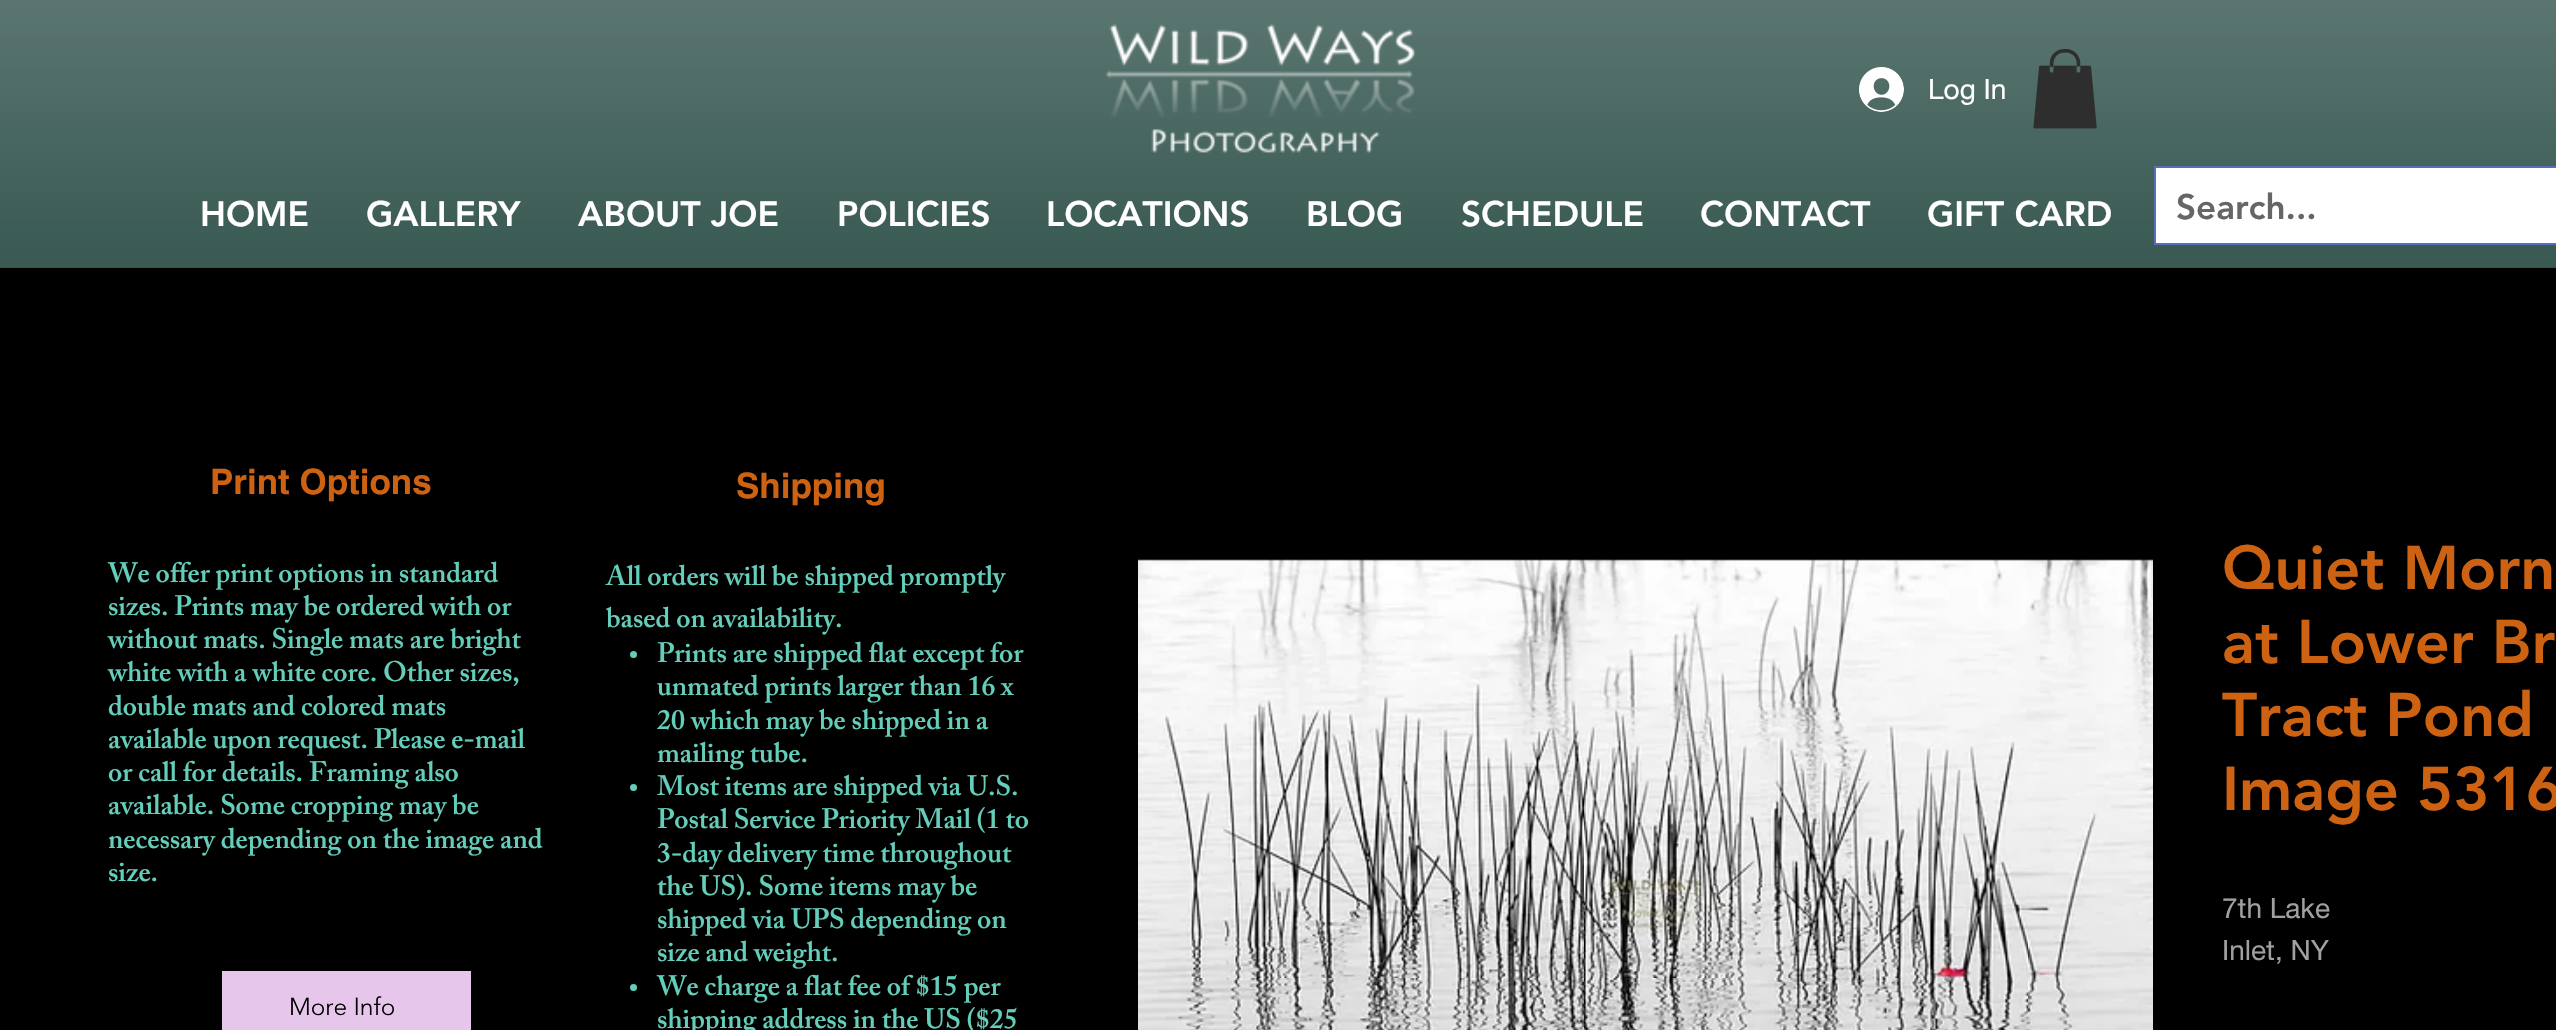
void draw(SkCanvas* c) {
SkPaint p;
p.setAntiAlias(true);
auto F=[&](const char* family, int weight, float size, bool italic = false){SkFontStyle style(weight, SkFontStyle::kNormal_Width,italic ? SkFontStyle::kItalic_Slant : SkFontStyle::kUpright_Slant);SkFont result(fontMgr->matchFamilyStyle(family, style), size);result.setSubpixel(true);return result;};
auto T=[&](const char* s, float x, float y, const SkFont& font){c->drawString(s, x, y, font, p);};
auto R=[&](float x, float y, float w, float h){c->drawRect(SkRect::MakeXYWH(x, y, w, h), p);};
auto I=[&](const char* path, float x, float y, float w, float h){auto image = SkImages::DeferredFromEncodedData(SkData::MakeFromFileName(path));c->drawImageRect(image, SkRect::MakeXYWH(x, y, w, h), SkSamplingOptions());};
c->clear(0xff000000);
p.setColor(0xff21453e);
R(0,0,2556,268);
I("1.png",0,0,2556,268);
I("2.png",1105,24,311,129);
I("3.png",1859,67,45,45);
auto f1 = F("helvetica neue",400,28);
p.setColor(0xffffffff);
T("Log In",1928,99,f1);
I("4.png",2033,49,64,80);
auto f2 = F("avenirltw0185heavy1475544",900,35);
T("HOME",200,226,f2);
T("GALLERY",366,226,f2);
T("ABOUT JOE",578,226,f2);
T("POLICIES",837,226,f2);
T("LOCATIONS",1046,226,f2);
T("BLOG",1306,226,f2);
T("SCHEDULE",1461,226,f2);
T("CONTACT",1700,226,f2);
T("GIFT CARD",1927,226,f2);
p.setStroke(true);
p.setStrokeWidth(2);
p.setColor(0xff566fb8);
c->drawRect(SkRect::MakeXYWH(2155,167,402,77),p);
p.setStroke(false);
p.setColor(0xffffffff);
R(2156,168,400,75);
p.setColor(0xff666666);
T("Search...",2176,219,f2);
auto f3 = F("helvetica",700,35);
p.setColor(0xffcd6312);
T("Print Options",210,494,f3);
auto f4 = F("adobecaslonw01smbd",600,28);
p.setColor(0xff64cebb);
T("We offer print options in standard",108,582,f4);
T("sizes. Prints may be ordered with or",108,615,f4);
T("without mats. Single mats are bright",108,648,f4);
T("white with a white core. Other sizes,",108,681,f4);
T("double mats and colored mats",108,715,f4);
T("available upon request. Please e-mail",108,748,f4);
T("or call for details. Framing also",108,781,f4);
T("available. Some cropping may be",108,814,f4);
T("necessary depending on the image and",108,848,f4);
T("size.",108,881,f4);
p.setColor(0xffe6c7eb);
R(222,971,249,59);
auto f5 = F("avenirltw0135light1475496",300,24.5);
p.setColor(0xff000000);
T("More Info",289,1015,f5);
p.setColor(0xffcd6312);
T("Shipping",736,498,f3);
p.setColor(0xff64cebb);
T("All orders will be shipped promptly",606,585,f4);
T("based on availability.",606,627,f4);
c->drawCircle(633.5,654.5,3.5,p);
T("Prints are shipped flat except for",657,662,f4);
T("unmated prints larger than 16 x",657,695,f4);
T("20 which may be shipped in a",657,729,f4);
T("mailing tube.",657,762,f4);
c->drawCircle(633.5,787.5,3.5,p);
T("Most items are shipped via U.S.",657,795,f4);
T("Postal Service Priority Mail (1 to",657,828,f4);
T("3-day delivery time throughout",657,862,f4);
T("the US). Some items may be",657,895,f4);
T("shipped via UPS depending on",657,928,f4);
T("size and weight.",657,961,f4);
c->drawCircle(633.5,987.5,3.5,p);
T("We charge a flat fee of $15 per",657,995,f4);
T("shipping address in the US ($25",657,1028,f4);
I("5.png",1138,559,1015,471);
auto f6 = F("avenirltw0185heavy1475544",900,61.25);
p.setColor(0xffcd6312);
T("Quiet Morn",2222,589,f6);
T("at Lower Br",2222,663,f6);
T("Tract Pond",2222,736,f6);
T("Image 5316",2222,810,f6);
p.setColor(0xffa0a09f);
T("7th Lake",2222,918,f1);
T("Inlet, NY",2222,960,f1);
}
